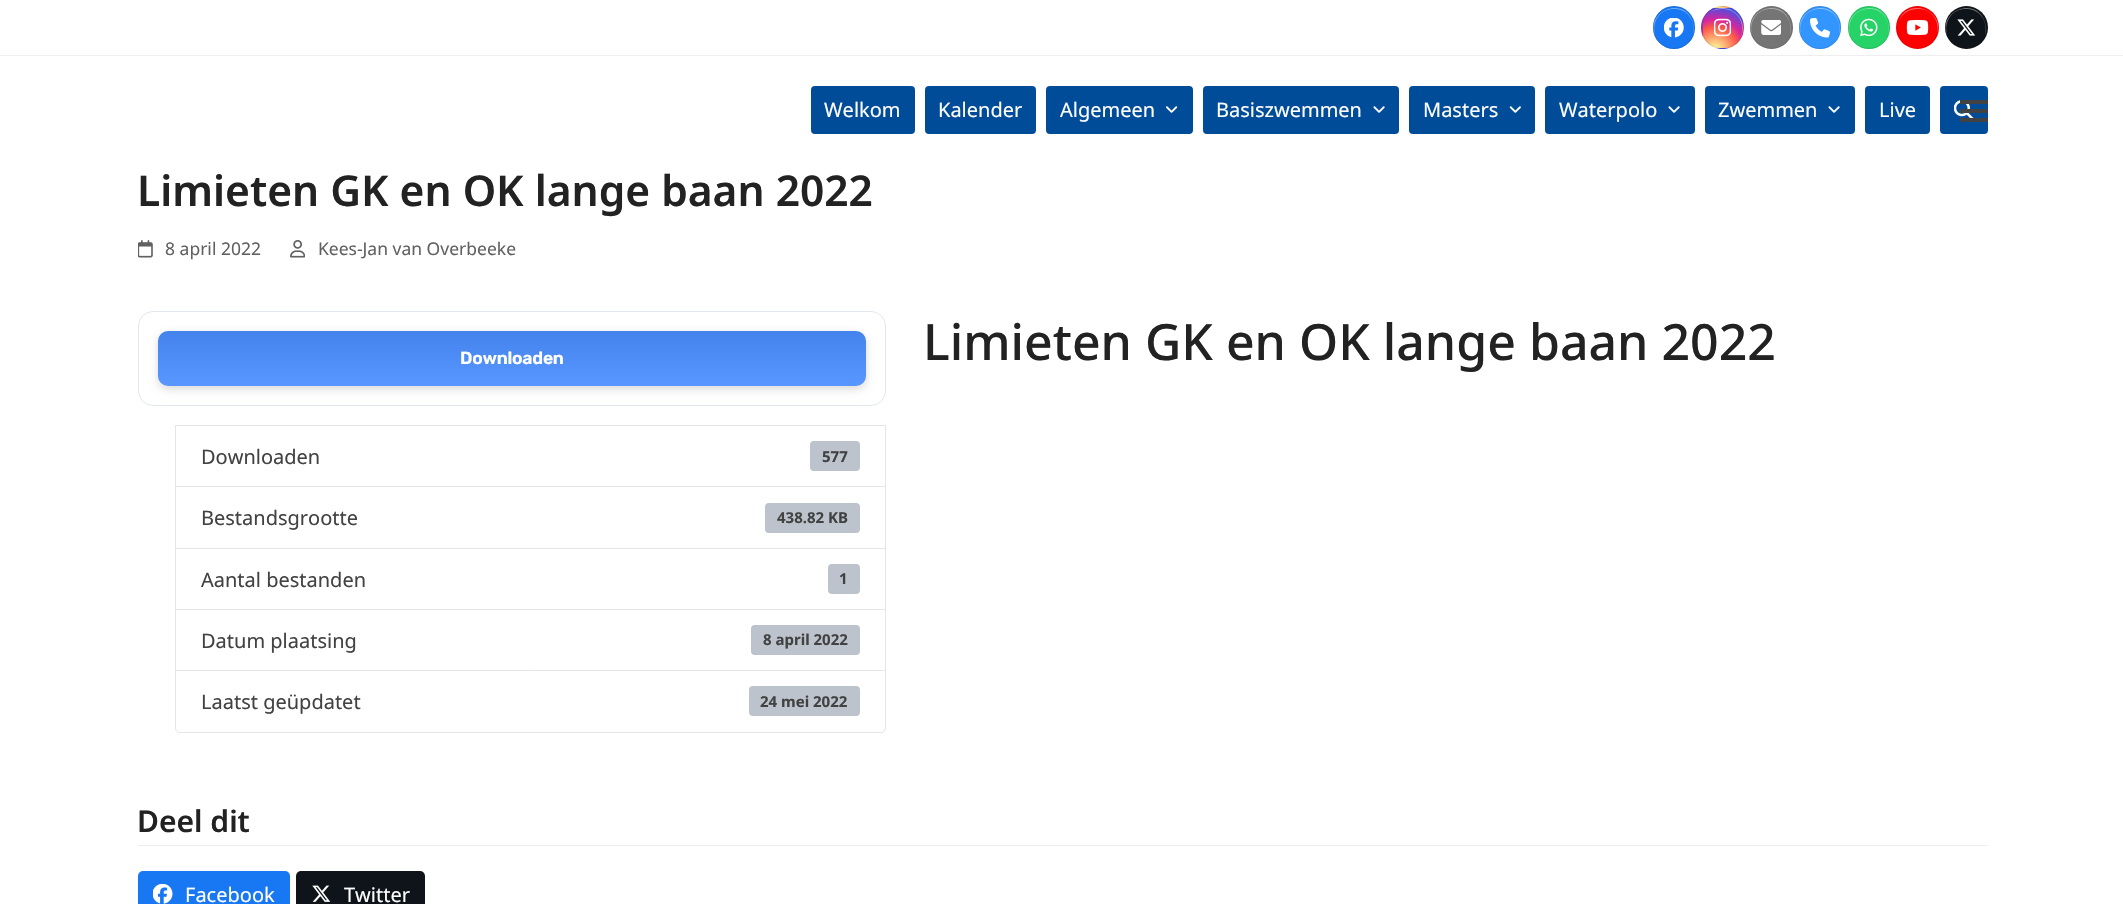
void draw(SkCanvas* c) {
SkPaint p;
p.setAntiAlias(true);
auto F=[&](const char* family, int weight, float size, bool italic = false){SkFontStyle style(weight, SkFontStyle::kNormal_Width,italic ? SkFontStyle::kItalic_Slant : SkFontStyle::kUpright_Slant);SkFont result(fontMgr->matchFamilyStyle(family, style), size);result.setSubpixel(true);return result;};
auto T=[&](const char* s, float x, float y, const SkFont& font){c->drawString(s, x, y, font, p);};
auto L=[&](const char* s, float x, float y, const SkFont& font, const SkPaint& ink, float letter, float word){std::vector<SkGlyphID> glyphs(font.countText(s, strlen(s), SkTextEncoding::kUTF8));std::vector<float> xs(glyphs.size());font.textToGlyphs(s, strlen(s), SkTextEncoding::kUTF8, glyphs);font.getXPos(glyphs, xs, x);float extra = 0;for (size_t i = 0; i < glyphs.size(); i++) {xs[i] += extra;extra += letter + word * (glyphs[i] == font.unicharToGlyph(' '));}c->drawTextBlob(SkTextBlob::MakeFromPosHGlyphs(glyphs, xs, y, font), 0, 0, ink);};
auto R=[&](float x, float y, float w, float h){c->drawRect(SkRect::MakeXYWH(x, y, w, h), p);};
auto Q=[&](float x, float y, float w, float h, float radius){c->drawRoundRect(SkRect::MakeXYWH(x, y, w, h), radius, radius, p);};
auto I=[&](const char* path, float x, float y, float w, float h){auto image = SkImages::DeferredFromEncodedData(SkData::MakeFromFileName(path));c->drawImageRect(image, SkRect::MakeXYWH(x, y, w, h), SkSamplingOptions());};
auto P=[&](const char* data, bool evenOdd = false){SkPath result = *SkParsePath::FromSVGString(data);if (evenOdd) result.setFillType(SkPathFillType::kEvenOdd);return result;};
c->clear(0xffffffff);
p.setColor(0xffeeeeee);
R(0,55,2123,1);
p.setColor(0xff1877f2);
Q(1653,6,42,43,21);
p.setColor(0xff74adf7);
c->drawPath(P("M1674 9c16 0 22 15 19 26c2-4 1-10-1-15c-10-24-46-8-37 15c-3-11 3-26 19-26z"),p);
p.setStroke(true);
p.setStrokeWidth(1);
p.setColor(0x1a000000);
c->drawRoundRect(SkRect::MakeXYWH(1653.5,6.5,41,42),20.5,20.5,p);
I("1.png",1664,18,20,20);
c->save();
c->clipPath(P("M1722.5 6c12 0 21.5 9.5 21.5 21.5c0 12-9.5 21.5-21.5 21.5c-12 0-21.5-9.5-21.5-21.5c0-12 9.5-21.5 21.5-21.5z"),true);
p.setStroke(false);
{
const SkColor colors[] = {0xfffdf497,0xfffdf497,0xfffd5949,0xffd6249f,0xff285aeb};
const float stops[] = {0,.05,.45,.6,.9};
p.setShader(SkGradientShader::MakeRadial({1715,10}, 51, colors, stops, 5, SkTileMode::kClamp));
p.setAlpha(255);
}
R(1713,6,19,2);
{
const SkColor colors[] = {0xfffdf497,0xfffdf497,0xfffd5949,0xffd6249f,0xff285aeb};
const float stops[] = {0,.05,.45,.6,.9};
p.setShader(SkGradientShader::MakeRadial({1675,50}, 51, colors, stops, 5, SkTileMode::kClamp));
p.setAlpha(255);
}
R(1701,18,2,19);
{
const SkColor colors[] = {0xfffdf497,0xfffdf497,0xfffd5949,0xffd6249f,0xff285aeb};
const float stops[] = {0,.05,.45,.6,.9};
p.setShader(SkGradientShader::MakeRadial({1715,50}, 51, colors, stops, 5, SkTileMode::kClamp));
p.setAlpha(255);
}
R(1703,8,40,40);
{
const SkColor colors[] = {0xfffdf497,0xfffdf497,0xfffd5949,0xffd6249f,0xff285aeb};
const float stops[] = {0,.05,.45,.6,.9};
p.setShader(SkGradientShader::MakeRadial({1755,50}, 51, colors, stops, 5, SkTileMode::kClamp));
p.setAlpha(255);
}
R(1743,21,1,13);
{
const SkColor colors[] = {0xfffdf497,0xfffdf497,0xfffd5949,0xffd6249f,0xff285aeb};
const float stops[] = {0,.05,.45,.6,.9};
p.setShader(SkGradientShader::MakeRadial({1715,90}, 51, colors, stops, 5, SkTileMode::kClamp));
p.setAlpha(255);
}
R(1716,48,13,1);
c->restore();
p.setShader(nullptr);
p.setColor(0x66ffffff);
c->drawPath(P("M1722 9c18 0 24 17.5 18 29c11.5-19-12.5-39.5-30-25.5c3.5-2 7-3.5 12-3.5z"),p);
p.setStroke(true);
p.setColor(0x1a000000);
c->drawCircle(1722.5,27.5,21,p);
I("2.png",1714,18,17,19);
p.setStroke(false);
p.setColor(0xff757575);
c->drawCircle(1771.5,27.5,21.5,p);
p.setColor(0xffacacac);
c->drawPath(P("M1771 9c16 0 22 15 19 26c2-4 1-10-1-15c-10-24-46-8-37 15c-3-11 3-26 19-26z"),p);
p.setStroke(true);
p.setColor(0x1a000000);
c->drawCircle(1771.5,27.5,21,p);
I("3.png",1761,20,20,15);
p.setStroke(false);
p.setColor(0xff3395ff);
Q(1799,6,42,43,21);
p.setColor(0xff85bfff);
c->drawPath(P("M1820 9c16 0 22 15 19 26c2-4 1-10-1-15c-10-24-46-8-37 15c-3-11 3-26 19-26z"),p);
p.setStroke(true);
p.setColor(0x1a000000);
c->drawRoundRect(SkRect::MakeXYWH(1799.5,6.5,41,42),20.5,20.5,p);
I("4.png",1810,18,20,20);
p.setStroke(false);
p.setColor(0xff25d366);
Q(1848,6,42,43,21);
p.setColor(0xff7ce5a3);
c->drawPath(P("M1869 9c16 0 22 15 19 26c2-4 1-10-1-15c-10-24-46-8-37 15c-3-11 3-26 19-26z"),p);
p.setStroke(true);
p.setColor(0x1a000000);
c->drawRoundRect(SkRect::MakeXYWH(1848.5,6.5,41,42),20.5,20.5,p);
I("5.png",1860,18,18,19);
p.setStroke(false);
p.setColor(0xffff0000);
c->drawCircle(1917.5,27.5,21.5,p);
p.setColor(0xffff6666);
c->drawPath(P("M1918 9c16 0 22 15 19 26c9-24-29-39-38-14c3-7 9-12 19-12z"),p);
p.setStroke(true);
p.setColor(0x1a000000);
c->drawCircle(1917.5,27.5,21,p);
I("6.png",1906,20,23,15);
p.setStroke(false);
p.setColor(0xff0f141a);
c->drawCircle(1966.5,27.5,21.5,p);
p.setColor(0xff6f7276);
c->drawPath(P("M1966 9c16 0 22 15 19 26c2-4 1-10-1-15c-10-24-46-8-37 15c-3-11 3-26 19-26z"),p);
p.setStroke(true);
p.setColor(0x1a000000);
c->drawCircle(1966.5,27.5,21,p);
I("7.png",1957,19,19,17);
p.setStroke(false);
p.setColor(0xff004c99);
Q(811,86,104,48,4);
auto f1 = F("Noto Sans",400,20);
p.setColor(0xffffffff);
T("Welkom",824,117,f1);
p.setColor(0xff004c99);
Q(925,86,111,48,4);
p.setColor(0xffffffff);
T("Kalender",938,117,f1);
p.setColor(0xff004c99);
Q(1046,86,147,48,4);
p.setColor(0xffffffff);
T("Algemeen",1060,117,f1);
I("8.png",1166,106,12,7);
p.setColor(0xff004c99);
Q(1203,86,196,48,4);
p.setColor(0xffffffff);
T("Basiszwemmen",1216,117,f1);
I("9.png",1373,106,12,7);
p.setColor(0xff004c99);
Q(1409,86,126,48,4);
p.setColor(0xffffffff);
T("Masters",1423,117,f1);
I("10.png",1509,106,12,7);
p.setColor(0xff004c99);
Q(1545,86,150,48,4);
p.setColor(0xffffffff);
T("Waterpolo",1559,117,f1);
I("9.png",1668,106,12,7);
p.setColor(0xff004c99);
Q(1705,86,150,48,4);
p.setColor(0xffffffff);
T("Zwemmen",1718,117,f1);
I("9.png",1828,106,12,7);
p.setColor(0xff004c99);
Q(1865,86,65,48,4);
p.setColor(0xffffffff);
T("Live",1879,117,f1);
p.setColor(0xff004c99);
Q(1940,86,48,48,4);
I("11.png",1954,100,20,18);
p.setColor(0xff424242);
R(1960,109,28,4);
R(1960,100,28,4);
R(1960,118,28,4);
auto f2 = F("Noto Sans",600,42.5);
p.setColor(0xff222222);
T("Limieten GK en OK lange baan 2022",137,206,f2);
I("12.png",138,240,15,18);
auto f3 = F("Noto Sans",400,17.5);
p.setColor(0xff616161);
T("8 april 2022",165,255,f3);
I("13.png",290,240,15,18);
T("Kees-Jan van Overbeeke",318,255,f3);
p.setStroke(true);
p.setColor(0xffe2e8f0);
c->drawRoundRect(SkRect::MakeXYWH(138.5,311.5,747,94),14.5,14.5,p);
p.setStroke(false);
p.setColor(0x26000000);
p.setMaskFilter(SkMaskFilter::MakeBlur(kNormal_SkBlurStyle, 4));
c->drawRoundRect(SkRect::MakeXYWH(158,334,708,55),10,10,p);
p.setMaskFilter(nullptr);
p.setColor(0xff4a8eff);
Q(158,331,708,55,10);
{
const SkColor colors[] = {0x14000000,0x14ffffff};
const float stops[] = {0,1};
const SkPoint ends[] = {{512,331}, {512,386}};
p.setShader(SkGradientShader::MakeLinear(ends, colors, stops, 2, SkTileMode::kClamp));
p.setAlpha(255);
}
Q(158,331,708,55,10);
auto f4 = F("Rubik",600,17.5);
p.setShader(nullptr);
p.setColor(0xffffffff);
L("Downloaden",460,364,f4,p,-.25,0);
p.setStroke(true);
p.setColor(0xffe5e5e5);
c->drawRect(SkRect::MakeXYWH(175.5,425.5,710,62),p);
p.setStroke(false);
p.setColor(0xff424242);
T("Downloaden",201,464,f1);
p.setColor(0xffbcc3cc);
Q(810,441,50,30,4);
auto f5 = F("Noto Sans",700,15);
p.setColor(0xff424242);
T("577",822,462,f5);
p.setColor(0xffffffff);
R(176,487,709,1);
p.setStroke(true);
p.setColor(0xffe5e5e5);
c->drawRect(SkRect::MakeXYWH(175.5,486.5,710,62),p);
p.setStroke(false);
p.setColor(0xff424242);
T("Bestandsgrootte",201,525,f1);
p.setColor(0xffbcc3cc);
Q(765,503,95,30,4);
p.setColor(0xff424242);
T("438.82 KB",777,523,f5);
p.setStroke(true);
p.setColor(0xffe5e5e5);
c->drawRect(SkRect::MakeXYWH(175.5,548.5,710,61),p);
p.setStroke(false);
p.setColor(0xff424242);
T("Aantal bestanden",201,587,f1);
p.setColor(0xffbcc3cc);
Q(828,564,32,30,4);
p.setColor(0xff424242);
T("1",839,584,f5);
p.setStroke(true);
p.setColor(0xffe5e5e5);
c->drawRect(SkRect::MakeXYWH(175.5,609.5,710,61),p);
p.setStroke(false);
p.setColor(0xff424242);
T("Datum plaatsing",201,648,f1);
p.setColor(0xffbcc3cc);
Q(751,625,109,30,4);
p.setColor(0xff424242);
T("8 april 2022",763,645,f5);
p.setColor(0xffffffff);
c->drawPath(P("M175.5 670.5h710v57.5c0 2.5-2 4.5-4.5 4.5h-701c-2.5 0-4.5-2-4.5-4.5z"),p);
p.setStroke(true);
p.setColor(0xffe5e5e5);
c->drawPath(P("M175.5 670.5h710v57.5c0 2.5-2 4.5-4.5 4.5h-701c-2.5 0-4.5-2-4.5-4.5z"),p);
p.setStroke(false);
p.setColor(0xff424242);
T("Laatst geüpdatet",201,709,f1);
p.setColor(0xffbcc3cc);
Q(749,686,111,30,4);
p.setColor(0xff424242);
T("24 mei 2022",760,707,f5);
auto f6 = F("Noto Sans",500,50);
p.setColor(0xff222222);
T("Limieten GK en OK lange baan 2022",923,360,f6);
p.setColor(0xffeeeeee);
R(138,845,1850,1);
auto f7 = F("Noto Sans",600,30);
p.setColor(0xff222222);
T("Deel dit",137,832,f7);
p.setColor(0xff1877f2);
Q(138,871,152,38,5);
I("14.png",153,884,20,20);
p.setColor(0xffffffff);
T("Facebook",185,902,f1);
p.setColor(0xff0f141a);
Q(296,871,129,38,5);
I("15.png",312,885,19,17);
p.setColor(0xffffffff);
T("Twitter",344,902,f1);
}
